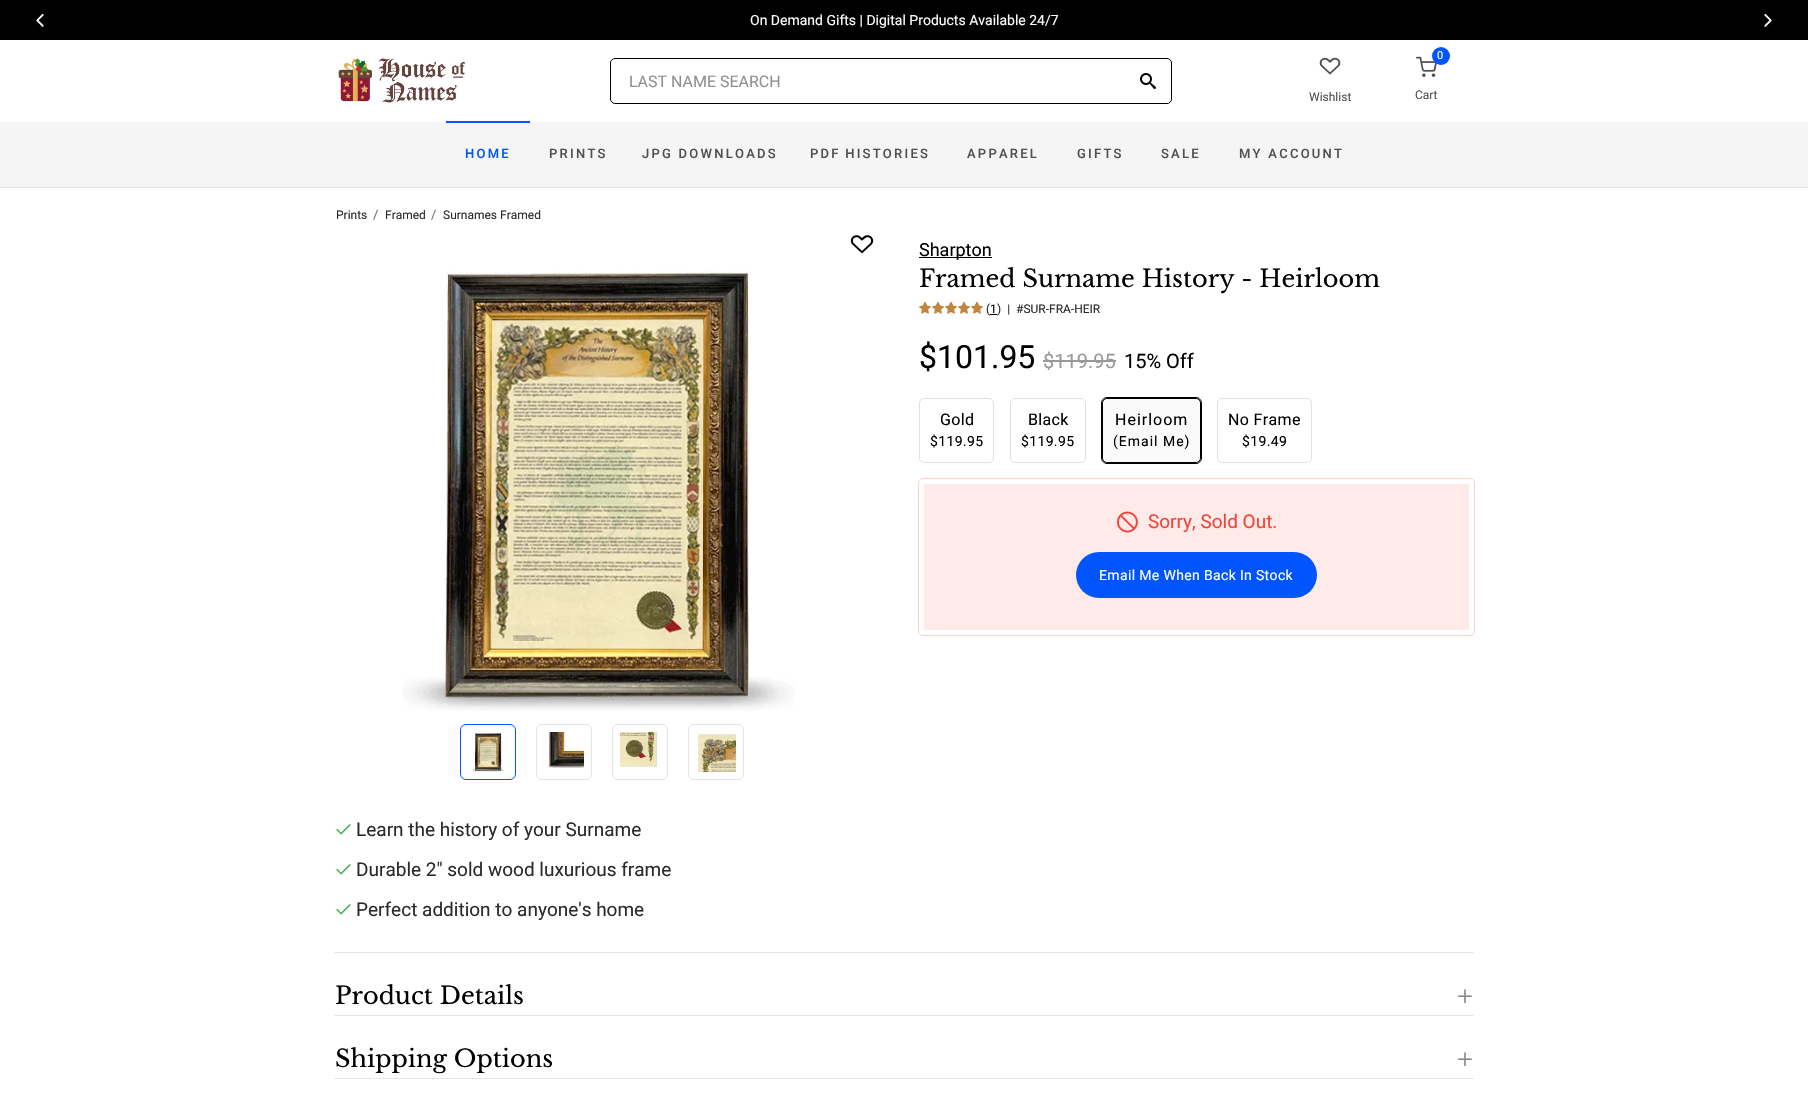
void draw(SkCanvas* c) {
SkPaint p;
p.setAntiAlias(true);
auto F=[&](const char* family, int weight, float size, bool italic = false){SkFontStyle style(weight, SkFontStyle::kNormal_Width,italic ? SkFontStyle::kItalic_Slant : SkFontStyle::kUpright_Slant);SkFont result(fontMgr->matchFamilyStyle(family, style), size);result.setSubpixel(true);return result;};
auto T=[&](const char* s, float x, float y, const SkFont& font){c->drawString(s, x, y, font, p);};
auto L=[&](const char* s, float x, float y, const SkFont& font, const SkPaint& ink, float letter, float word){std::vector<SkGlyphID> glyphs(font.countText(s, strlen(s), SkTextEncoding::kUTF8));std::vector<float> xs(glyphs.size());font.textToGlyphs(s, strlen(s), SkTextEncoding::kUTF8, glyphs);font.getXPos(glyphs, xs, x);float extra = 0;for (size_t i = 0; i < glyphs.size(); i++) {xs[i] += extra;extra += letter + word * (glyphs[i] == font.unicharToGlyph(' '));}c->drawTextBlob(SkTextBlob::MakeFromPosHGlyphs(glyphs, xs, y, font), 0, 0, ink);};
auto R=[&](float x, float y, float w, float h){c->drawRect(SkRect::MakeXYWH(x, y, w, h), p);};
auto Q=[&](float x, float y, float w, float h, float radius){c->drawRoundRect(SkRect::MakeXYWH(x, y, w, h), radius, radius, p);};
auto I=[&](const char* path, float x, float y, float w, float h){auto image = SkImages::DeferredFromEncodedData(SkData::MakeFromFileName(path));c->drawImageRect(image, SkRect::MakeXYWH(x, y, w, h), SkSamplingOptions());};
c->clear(0xffffffff);
p.setColor(0xff000000);
R(0,0,1808,40);
I("1.png",36,14,8,13);
I("2.png",1764,14,8,13);
auto f1 = F("Roboto",400,14);
p.setColor(0xffffffff);
T("On Demand Gifts | Digital Products Available 24/7",750,25,f1);
I("3.png",338,58,128,45);
p.setStroke(true);
p.setStrokeWidth(1);
p.setColor(0xff000000);
c->drawRoundRect(SkRect::MakeXYWH(610.5,58.5,561,45),4.5,4.5,p);
auto f2 = F("Roboto",400,16);
p.setStroke(false);
p.setColor(0xff8e918f);
T("LAST NAME SEARCH",629,87,f2);
I("4.png",1140,73,16,16);
I("5.png",1319,57,22,18);
auto f3 = F("Roboto",400,12);
p.setColor(0xff505050);
T("Wishlist",1309,101,f3);
I("6.png",1416,56,21,21);
p.setColor(0xff0055ff);
c->drawCircle(1441,56,9,p);
auto f4 = F("Roboto",400,11);
p.setColor(0xffffffff);
T("0",1437,59,f4);
p.setColor(0xff505050);
T("Cart",1415,99,f3);
p.setColor(0xfff5f5f5);
R(0,122,1808,65);
p.setColor(0xffe5e5e5);
R(0,187,1808,1);
p.setColor(0xff0055ff);
R(446,121,84,2);
auto f5 = F("Roboto",500,13);
L("HOME",465,158,f5,p,2.25,0);
p.setColor(0xff505050);
L("PRINTS",549,158,f5,p,2.25,0);
L("JPG DOWNLOADS",642,158,f5,p,2.25,0);
L("PDF HISTORIES",810,158,f5,p,2.25,-1);
L("APPAREL",967,158,f5,p,2.25,0);
L("GIFTS",1077,158,f5,p,2.25,0);
L("SALE",1161,158,f5,p,2.25,0);
L("MY ACCOUNT",1239,158,f5,p,2.25,0);
p.setColor(0xff2b2b2b);
T("Prints",336,219,f3);
auto f6 = F("Roboto",400,13);
p.setColor(0xff707070);
T("/",373,219,f6);
p.setColor(0xff2b2b2b);
T("Framed",385,219,f3);
p.setColor(0xff707070);
T("/",431,219,f6);
p.setColor(0xff2b2b2b);
T("Surnames Framed",443,219,f3);
I("7.png",850,235,24,19);
I("8.png",402,271,393,440);
p.setStroke(true);
p.setColor(0xff0055ff);
c->drawRoundRect(SkRect::MakeXYWH(460.5,724.5,55,55),5.5,5.5,p);
I("9.png",471,733,34,39);
p.setColor(0xffe5e5e5);
c->drawRoundRect(SkRect::MakeXYWH(536.5,724.5,55,55),5.5,5.5,p);
I("10.png",547,732,37,36);
c->drawRoundRect(SkRect::MakeXYWH(612.5,724.5,55,55),5.5,5.5,p);
I("11.png",620,732,37,35);
c->drawRoundRect(SkRect::MakeXYWH(688.5,724.5,55,55),5.5,5.5,p);
I("12.png",698,734,38,38);
p.setStroke(false);
p.setColor(0xff000000);
R(919,257,73,1);
auto f7 = F("Roboto",400,18);
T("Sharpton",919,256,f7);
auto f8 = F("Libre Baskerville",400,24);
T("Framed Surname History - Heirloom",919,287,f8);
I("13.png",919,301,12,13);
I("13.png",932,301,12,13);
I("13.png",945,301,12,13);
I("13.png",958,301,12,13);
I("13.png",971,301,12,13);
p.setColor(0xff2b2b2b);
T("(",986,313,f3);
p.setColor(0xff000000);
T("1",990,313,f3);
R(990,314,7,1);
p.setColor(0xff2b2b2b);
T(")  |  #SUR-FRA-HEIR",997,313,f3);
auto f9 = F("Roboto",400,32);
p.setColor(0xff000000);
T("$101.95",919,368,f9);
auto f10 = F("Roboto",400,20);
p.setColor(0xff999999);
T("$119.95",1043,368,f10);
R(1043,360,73,2);
p.setColor(0xff000000);
T("15% Off",1124,368,f10);
p.setStroke(true);
p.setColor(0xffe0e0e0);
c->drawRoundRect(SkRect::MakeXYWH(919.5,398.5,74,64),4.5,4.5,p);
p.setStroke(false);
p.setColor(0xff000000);
L("Gold",940,425,f2,p,.35,0);
L("$119.95",930,446,f1,p,.35,0);
p.setStroke(true);
p.setColor(0xffe0e0e0);
c->drawRoundRect(SkRect::MakeXYWH(1010.5,398.5,75,64),4.5,4.5,p);
p.setStroke(false);
p.setColor(0xff000000);
L("Black",1028,425,f2,p,.35,0);
L("$119.95",1021,446,f1,p,.35,0);
p.setColor(0xfffafafa);
c->drawRoundRect(SkRect::MakeXYWH(1102.5,398.5,98,64),4.5,4.5,p);
p.setStroke(true);
p.setColor(0xff000000);
c->drawRoundRect(SkRect::MakeXYWH(1102.5,398.5,98,64),4.5,4.5,p);
c->drawRoundRect(SkRect::MakeXYWH(1101.5,397.5,100,66),5.5,5.5,p);
p.setStroke(false);
L("Heirloom",1115,425,f2,p,1,0);
L("(Email Me)",1113,446,f1,p,1,0);
p.setStroke(true);
p.setColor(0xffe0e0e0);
c->drawRoundRect(SkRect::MakeXYWH(1217.5,398.5,94,64),4.5,4.5,p);
p.setStroke(false);
p.setColor(0xff000000);
L("No Frame",1228,425,f2,p,.35,0);
L("$19.49",1242,446,f1,p,.35,0);
p.setStroke(true);
p.setColor(0xfffcd0cd);
c->drawRoundRect(SkRect::MakeXYWH(918.5,478.5,556,157),4.5,4.5,p);
p.setStroke(false);
p.setColor(0xfffeeae9);
R(924,484,545,146);
I("14.png",1117,511,21,22);
auto f11 = F("Roboto",400,19);
p.setColor(0xfff44336);
T("Sorry, Sold Out.",1148,528,f11);
p.setColor(0xff0055ff);
Q(1076,552,241,46,23);
p.setColor(0xffffffff);
L("Email Me When Back In Stock",1099,580,f1,p,.35,0);
I("15.png",336,824,15,11);
p.setColor(0xff2b2b2b);
T("Learn the history of your Surname",356,836,f11);
I("15.png",336,864,15,11);
T("Durable 2\" sold wood luxurious frame",356,876,f11);
I("15.png",336,904,15,11);
T("Perfect addition to anyone's home",356,916,f11);
p.setColor(0xffe5e5e5);
R(334,952,1140,1);
p.setColor(0xff000000);
T("Product Details",335,1004,f8);
auto f12 = F("Libre Baskerville",400,29);
p.setColor(0xff888888);
T("+",1457,1006,f12);
p.setColor(0xffe5e5e5);
R(334,1015,1140,1);
p.setColor(0xff000000);
T("Shipping Options",335,1067,f8);
p.setColor(0xff888888);
T("+",1457,1069,f12);
p.setColor(0xffe5e5e5);
R(334,1078,1140,1);
}
